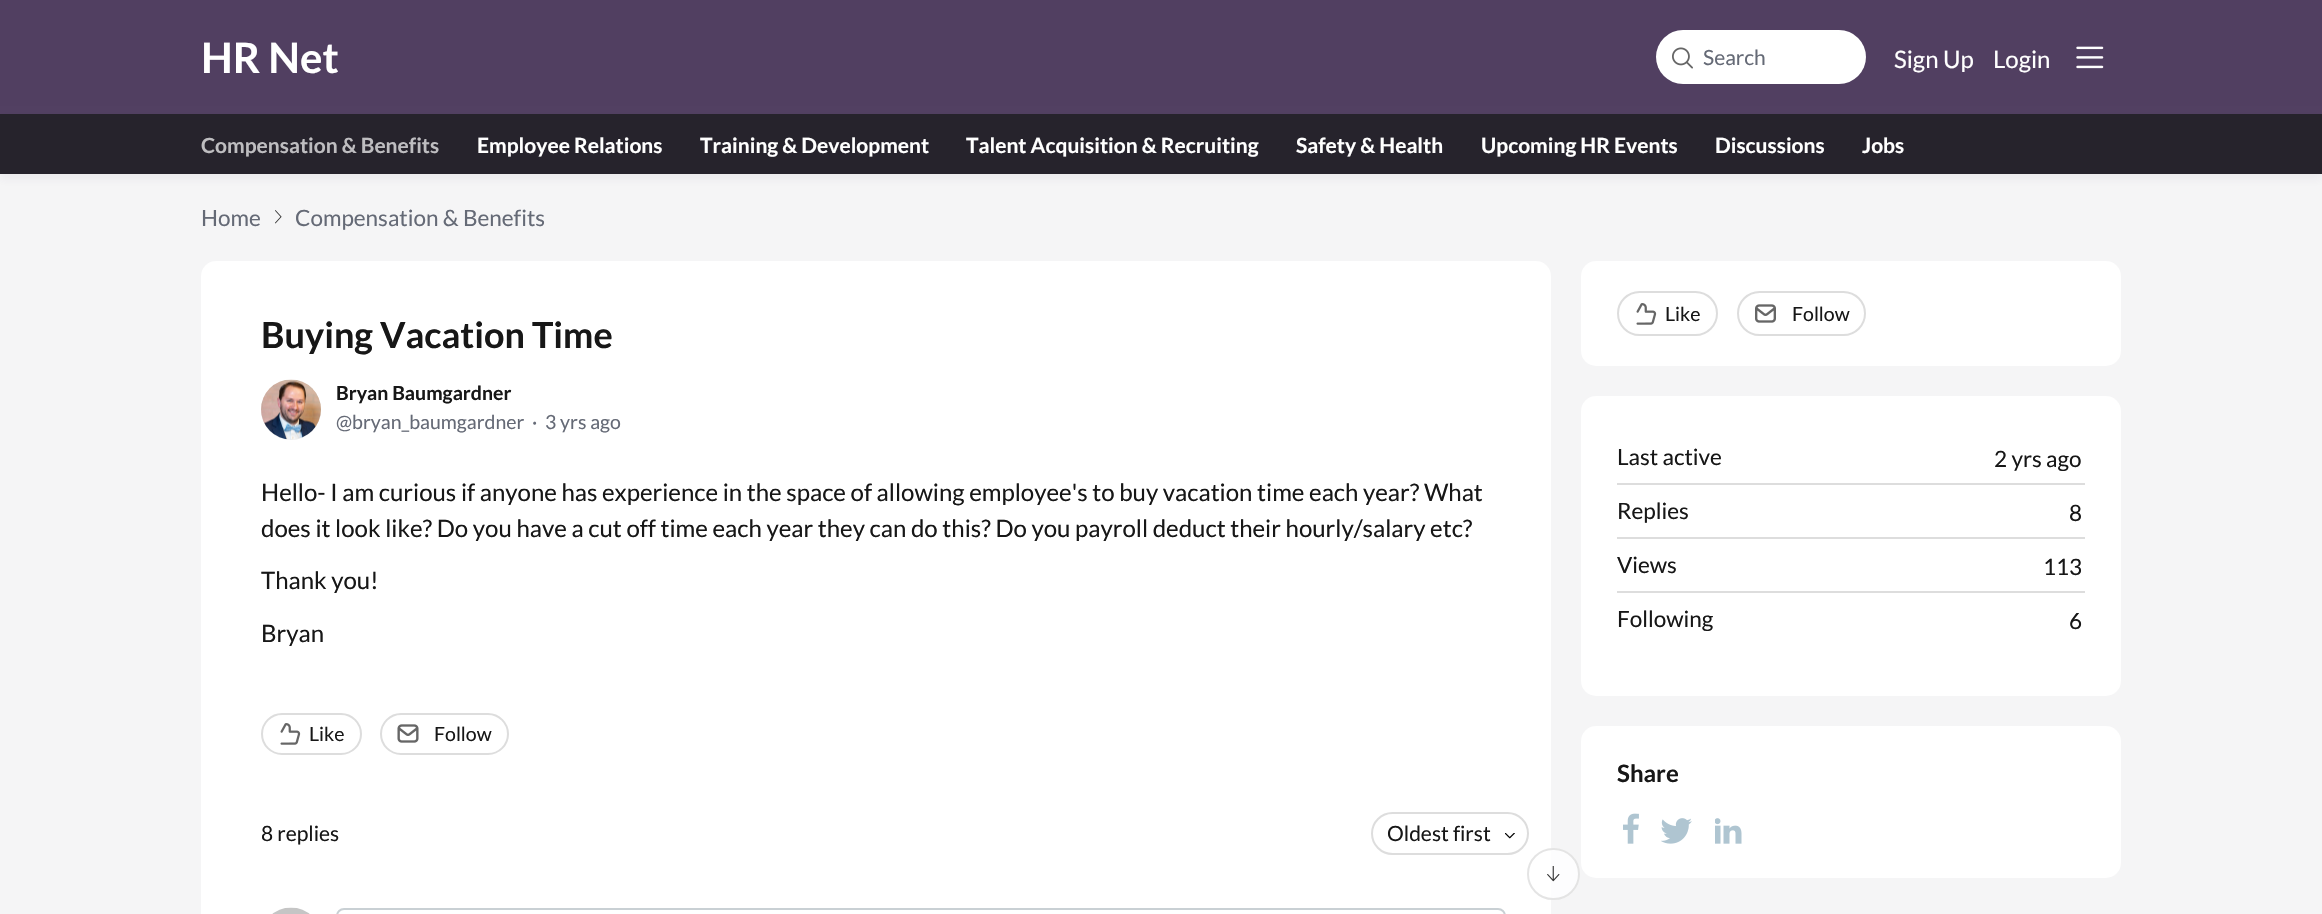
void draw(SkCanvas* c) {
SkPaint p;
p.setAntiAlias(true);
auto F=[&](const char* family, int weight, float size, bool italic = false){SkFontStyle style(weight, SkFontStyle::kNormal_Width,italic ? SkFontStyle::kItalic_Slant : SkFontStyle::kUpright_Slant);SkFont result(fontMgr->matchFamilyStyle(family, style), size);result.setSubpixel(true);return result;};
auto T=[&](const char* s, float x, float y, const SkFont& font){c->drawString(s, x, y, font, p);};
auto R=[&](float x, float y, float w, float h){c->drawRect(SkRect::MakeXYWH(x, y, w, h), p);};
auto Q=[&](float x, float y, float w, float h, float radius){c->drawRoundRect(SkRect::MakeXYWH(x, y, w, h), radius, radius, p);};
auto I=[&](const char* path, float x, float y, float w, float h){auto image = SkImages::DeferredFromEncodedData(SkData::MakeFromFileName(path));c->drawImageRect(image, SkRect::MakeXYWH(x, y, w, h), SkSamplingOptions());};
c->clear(0xfff5f5f6);
p.setColor(0xff513f61);
R(0,0,2322,114);
auto f1 = F("Lato",700,42);
p.setColor(0xffffffff);
T("HR Net",201,73,f1);
Q(1656,30,210,54,27);
I("1.png",1672,47,21,22);
auto f2 = F("Lato",400,21);
p.setColor(0xff656a76);
T("Search",1703,65,f2);
auto f3 = F("Lato",400,24);
p.setColor(0xffffffff);
T("Sign Up",1894,68,f3);
T("Login",1993,68,f3);
I("2.png",2076,46,28,23);
p.setColor(0x0f3e396b);
p.setMaskFilter(SkMaskFilter::MakeBlur(kNormal_SkBlurStyle, 4.5));
c->drawRect(SkRect::MakeXYWH(0,119,2322,60),p);
p.setMaskFilter(nullptr);
p.setColor(0xff26232c);
R(0,114,2322,60);
auto f4 = F("Lato",700,21);
p.setColor(0xffbebdc0);
T("Compensation & Benefits",201,153,f4);
p.setColor(0xffffffff);
T("Employee Relations",477,153,f4);
T("Training & Development",700,153,f4);
T("Talent Acquisition & Recruiting",966,153,f4);
T("Safety & Health",1296,153,f4);
T("Upcoming HR Events",1481,153,f4);
T("Discussions",1715,153,f4);
T("Jobs",1862,153,f4);
auto f5 = F("Lato",400,22.5);
p.setColor(0xff656a76);
T("Home",201,226,f5);
I("3.png",275,210,7,14);
T("Compensation & Benefits",295,226,f5);
p.setColor(0xffffffff);
Q(201,261,1350,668,15);
auto f6 = F("Lato",700,36);
p.setColor(0xff171717);
T("Buying Vacation Time",261,348,f6);
p.setColor(0xffefefef);
c->drawCircle(291,410,30,p);
I("4.png",261,379,60,61);
auto f7 = F("Lato",700,19.5);
p.setColor(0xff171717);
T("Bryan Baumgardner",336,400,f7);
auto f8 = F("Lato",400,19.5);
p.setColor(0xff656a76);
T("@bryan_baumgardner",336,429,f8);
T("·",532,429,f8);
T("3 yrs ago",545,429,f8);
p.setColor(0xff171717);
T("Hello- I am curious if anyone has experience in the space of allowing employee's to buy vacation time each year? What",261,501,f3);
T("does it look like? Do you have a cut off time each year they can do this? Do you payroll deduct their hourly/salary etc?",261,537,f3);
T("Thank you!",261,589,f3);
T("Bryan",261,642,f3);
p.setStroke(true);
p.setStrokeWidth(2);
p.setColor(0xffdddddd);
c->drawRoundRect(SkRect::MakeXYWH(262,714,99,40),20,20,p);
I("5.png",280,723,21,22);
p.setStroke(false);
p.setColor(0xff171717);
T("Like",309,741,f8);
p.setStroke(true);
p.setColor(0xffdddddd);
c->drawRoundRect(SkRect::MakeXYWH(381,714,127,40),20,20,p);
I("6.png",397,724,22,19);
p.setStroke(false);
p.setColor(0xff171717);
T("Follow",434,741,f8);
T("8 replies",261,841,f2);
p.setStroke(true);
p.setColor(0xffdddddd);
c->drawRoundRect(SkRect::MakeXYWH(1372,813,156,41),20.5,20.5,p);
p.setStroke(false);
p.setColor(0xff171717);
T("Oldest first",1387,841,f2);
I("7.png",1505,833,10,6);
I("8.png",272,907,38,7);
p.setStroke(true);
p.setColor(0xffc9d0d4);
c->drawRoundRect(SkRect::MakeXYWH(337,909,1168,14),7,7,p);
p.setStroke(false);
p.setColor(0xccffffff);
Q(1527,848,53,52,26);
I("9.png",1547,866,13,16);
p.setStroke(true);
p.setColor(0xccdddddd);
c->drawRoundRect(SkRect::MakeXYWH(1528,849,51,50),25,25,p);
p.setStroke(false);
p.setColor(0xffffffff);
Q(1581,261,540,105,15);
p.setStroke(true);
p.setColor(0xffdddddd);
c->drawRoundRect(SkRect::MakeXYWH(1618,292,99,43),21.5,21.5,p);
I("5.png",1636,303,21,22);
p.setStroke(false);
p.setColor(0xff171717);
T("Like",1665,321,f8);
p.setStroke(true);
p.setColor(0xffdddddd);
c->drawRoundRect(SkRect::MakeXYWH(1738,292,127,43),21.5,21.5,p);
I("10.png",1755,304,21,19);
p.setStroke(false);
p.setColor(0xff171717);
T("Follow",1792,321,f8);
p.setColor(0xffffffff);
Q(1581,396,540,300,15);
p.setColor(0xff171717);
T("Last active",1617,465,f5);
T("2 yrs ago",1994,467,f5);
p.setColor(0xffdddddd);
R(1617,483,468,2);
p.setColor(0xff171717);
T("Replies",1617,519,f5);
T("8",2069,521,f5);
p.setColor(0xffdddddd);
R(1617,537,468,2);
p.setColor(0xff171717);
T("Views",1617,573,f5);
T("113",2043,575,f5);
p.setColor(0xffdddddd);
R(1617,591,468,2);
p.setColor(0xff171717);
T("Following",1617,627,f5);
T("6",2069,629,f5);
p.setColor(0xffffffff);
Q(1581,726,540,152,15);
auto f9 = F("Lato",700,24);
p.setColor(0xff171717);
T("Share",1617,782,f9);
I("11.png",1623,813,16,31);
I("12.png",1661,818,31,26);
I("13.png",1715,818,27,26);
}
